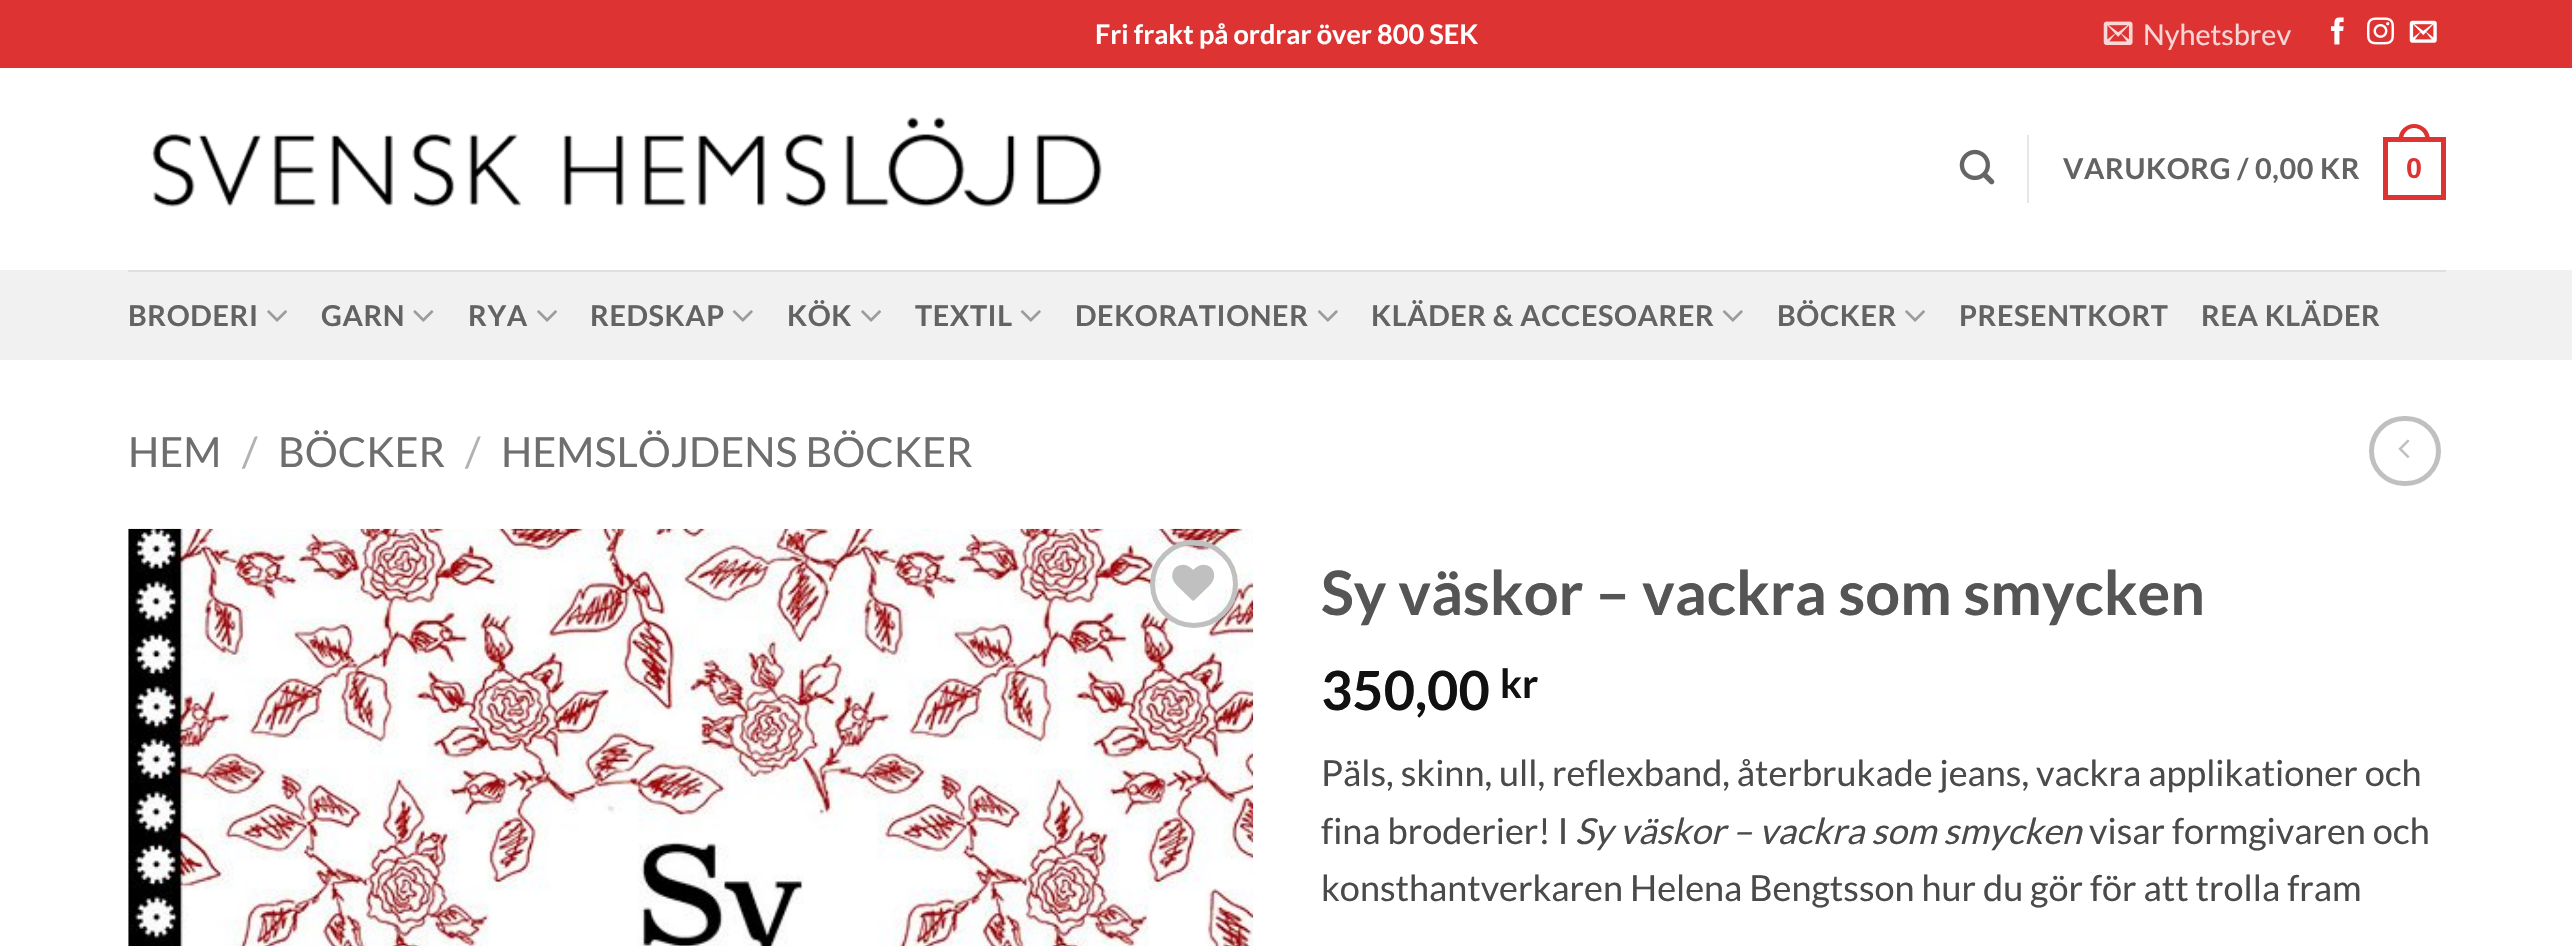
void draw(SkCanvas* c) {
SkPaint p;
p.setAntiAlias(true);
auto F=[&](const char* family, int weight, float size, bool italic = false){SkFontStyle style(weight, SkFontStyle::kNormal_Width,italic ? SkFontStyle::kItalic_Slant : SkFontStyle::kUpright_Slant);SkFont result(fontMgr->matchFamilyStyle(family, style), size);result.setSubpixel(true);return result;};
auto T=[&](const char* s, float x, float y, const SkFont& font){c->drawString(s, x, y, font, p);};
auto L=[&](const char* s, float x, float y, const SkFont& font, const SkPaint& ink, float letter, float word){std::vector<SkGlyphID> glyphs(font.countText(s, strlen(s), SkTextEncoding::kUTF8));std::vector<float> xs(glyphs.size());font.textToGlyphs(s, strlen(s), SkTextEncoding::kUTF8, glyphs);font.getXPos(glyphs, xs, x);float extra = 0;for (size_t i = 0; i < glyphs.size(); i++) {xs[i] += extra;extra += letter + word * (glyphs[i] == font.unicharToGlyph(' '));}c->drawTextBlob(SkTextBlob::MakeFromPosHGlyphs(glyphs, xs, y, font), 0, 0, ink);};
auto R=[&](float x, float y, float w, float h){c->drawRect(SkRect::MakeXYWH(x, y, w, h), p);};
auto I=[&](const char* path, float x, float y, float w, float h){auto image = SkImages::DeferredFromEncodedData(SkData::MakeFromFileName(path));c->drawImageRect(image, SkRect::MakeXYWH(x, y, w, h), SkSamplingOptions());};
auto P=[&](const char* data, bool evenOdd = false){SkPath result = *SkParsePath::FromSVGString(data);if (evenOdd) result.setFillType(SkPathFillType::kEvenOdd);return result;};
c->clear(0xffffffff);
p.setColor(0xffdd3333);
R(0,0,2572,68);
auto f1 = F("Lato",700,27);
p.setColor(0xffffffff);
T("Fri frakt på ordrar över 800 SEK",1095,44,f1);
I("1.png",2103,21,30,24);
auto f2 = F("Lato",400,28.75);
p.setColor(0xfff8d6d6);
T("Nyhetsbrev",2143,45,f2);
I("2.png",2331,17,13,28);
I("3.png",2367,17,27,28);
I("4.png",2409,20,28,23);
I("5.png",151,116,951,91);
I("6.png",1959,149,36,36);
p.setColor(0xffe6e6e6);
R(2027,135,2,68);
auto f3 = F("Lato",700,28.75);
p.setColor(0xff636363);
L("VARUKORG / 0,00 KR",2063,179,f3,p,.6,0);
p.setStroke(true);
p.setStrokeWidth(5);
p.setColor(0xffdd3333);
c->drawRect(SkRect::MakeXYWH(2385.5,139.5,58,58),p);
p.setStroke(false);
c->drawPath(P("M2414 124c9 0 16 7 16 15.5v2.5h-31.5v-2.5c0-8.5 7-15.5 15.5-15.5zm0 4c6.5 0 11.5 5.5 11.5 11.5v2.5h-22.5v-2.5c0-6 5-11.5 11-11.5z",true),p);
auto f4 = F("Liberation Sans",700,28.75);
L("0",2406,178,f4,p,.6,0);
p.setColor(0xfff1f1f1);
R(0,270,2572,90);
p.setColor(0xffe0e0e0);
R(128,270,2318,2);
p.setColor(0xff636363);
L("BRODERI",128,326,f3,p,.6,0);
I("7.png",267,310,20,12);
L("GARN",321,326,f3,p,.6,0);
I("8.png",413,310,21,12);
L("RYA",468,326,f3,p,.6,0);
I("7.png",537,310,20,12);
L("REDSKAP",590,326,f3,p,.6,0);
I("9.png",732,310,21,12);
L("KÖK",787,326,f3,p,.6,0);
I("7.png",861,310,20,12);
L("TEXTIL",915,326,f3,p,.6,0);
I("9.png",1020,310,21,12);
L("DEKORATIONER",1075,326,f3,p,.6,0);
I("9.png",1317,310,21,12);
L("KLÄDER & ACCESOARER",1371,326,f3,p,.6,0);
I("9.png",1722,310,21,12);
L("BÖCKER",1777,326,f3,p,.6,0);
I("7.png",1905,310,20,12);
L("PRESENTKORT",1959,326,f3,p,.6,0);
L("REA KLÄDER",2201,326,f3,p,.6,0);
auto f5 = F("Lato",400,41.4);
p.setColor(0xff6e6e6e);
T("HEM",128,467,f5);
p.setColor(0xffb2b2b2);
T("/",242,467,f5);
p.setColor(0xff6e6e6e);
T("BÖCKER",278,467,f5);
p.setColor(0xffb2b2b2);
T("/",465,467,f5);
p.setColor(0xff6e6e6e);
T("HEMSLÖJDENS BÖCKER",501,467,f5);
p.setStroke(true);
p.setColor(0xffc0c0c0);
c->drawRoundRect(SkRect::MakeXYWH(2371.5,418.5,67,65),32.5,32.5,p);
I("10.png",2398,439,12,19);
I("11.png",128,528,1126,418);
c->drawCircle(1194,584,41.5,p);
I("12.png",1172,564,43,37);
auto f6 = F("Lato",700,61.25);
p.setStroke(false);
p.setColor(0xff555555);
T("Sy väskor – vackra som smycken",1321,615,f6);
auto f7 = F("Lato",700,54);
p.setColor(0xff111111);
T("350,00",1321,710,f7);
auto f8 = F("Lato",700,40);
T("kr",1500,698,f8);
auto f9 = F("Lato",400,36);
p.setColor(0xff4a4a4a);
T("Päls, skinn, ull, reflexband, återbrukade jeans, vackra applikationer och",1321,786,f9);
T("fina broderier! I",1321,844,f9);
auto f10 = F("Lato",400,36,true);
T("Sy väskor – vackra som smycken",1575,844,f10);
T("visar formgivaren och",2089,844,f9);
T("konsthantverkaren Helena Bengtsson hur du gör för att trolla fram",1321,901,f9);
}
